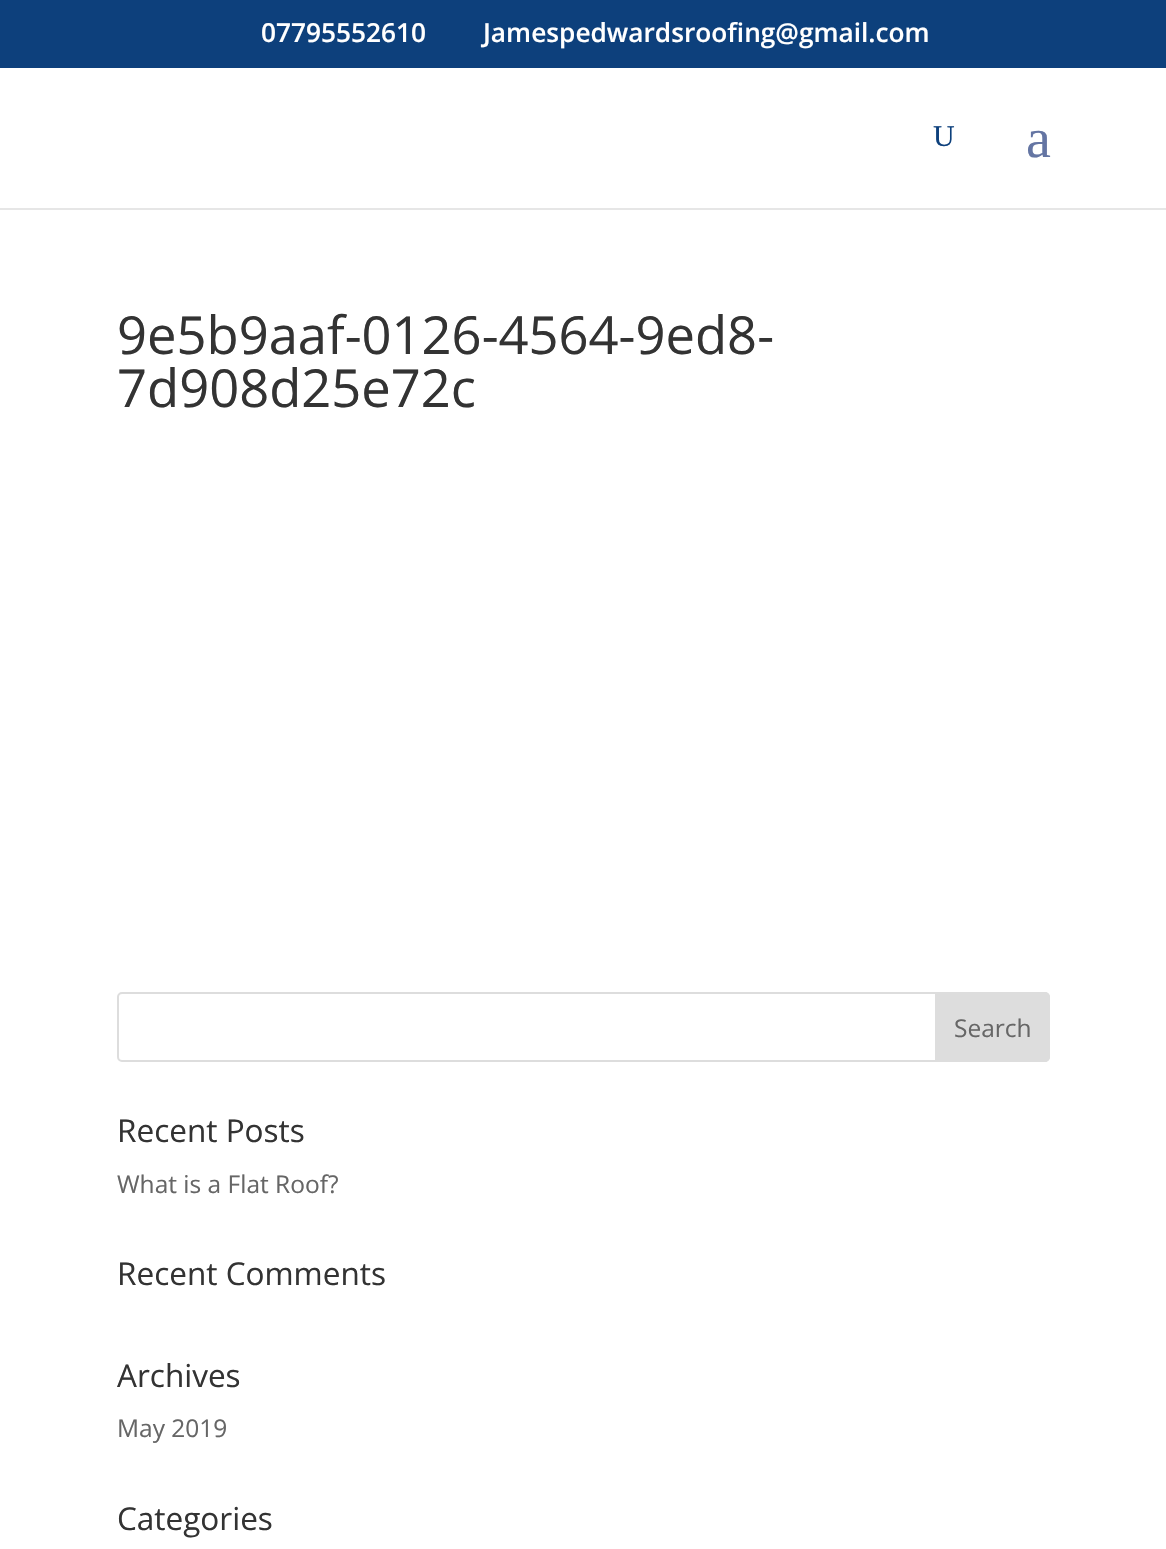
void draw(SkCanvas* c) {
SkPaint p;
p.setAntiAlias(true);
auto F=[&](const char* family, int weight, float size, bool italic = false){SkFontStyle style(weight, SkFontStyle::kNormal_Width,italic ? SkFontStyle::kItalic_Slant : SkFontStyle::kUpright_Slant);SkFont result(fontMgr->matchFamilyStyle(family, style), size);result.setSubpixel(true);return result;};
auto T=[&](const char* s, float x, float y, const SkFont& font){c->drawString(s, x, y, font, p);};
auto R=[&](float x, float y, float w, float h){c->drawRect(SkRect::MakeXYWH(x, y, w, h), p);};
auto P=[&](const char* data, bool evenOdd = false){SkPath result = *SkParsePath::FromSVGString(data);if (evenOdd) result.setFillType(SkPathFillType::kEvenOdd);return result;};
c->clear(0xffffffff);
p.setColor(0xff0d407c);
R(0,0,1166,68);
auto f1 = F("Open Sans",600,26.25);
p.setColor(0xffffffff);
T("07795552610",261,42,f1);
T("Jamespedwardsroofing@gmail.com",483,42,f1);
p.setColor(0xffe6e6e6);
R(0,208,1166,2);
auto f2 = F("Liberation Serif",400,30);
p.setColor(0xff0d407c);
T("U",933,146,f2);
auto f3 = F("Liberation Serif",400,56);
p.setColor(0xff6475a3);
T("a",1026,157,f3);
auto f4 = F("Open Sans",400,52.5);
p.setColor(0xff333333);
T("9e5b9aaf-0126-4564-9ed8-",117,354,f4);
T("7d908d25e72c",117,407,f4);
p.setStroke(true);
p.setStrokeWidth(2);
p.setColor(0xffdddddd);
c->drawRoundRect(SkRect::MakeXYWH(118,993,931,68),4,4,p);
p.setStroke(false);
c->drawPath(P("M936 993h109c2 0 4 2 4 4v60c0 2-2 4-4 4h-109z"),p);
p.setStroke(true);
c->drawPath(P("M936 993h109c2 0 4 2 4 4v60c0 2-2 4-4 4h-109z"),p);
auto f5 = F("Open Sans",400,24.5);
p.setStroke(false);
p.setColor(0xff666666);
T("Search",954,1037,f5);
auto f6 = F("Open Sans",400,31.5);
p.setColor(0xff333333);
T("Recent Posts",117,1142,f6);
p.setColor(0xff666666);
T("What is a Flat Roof?",117,1193,f5);
p.setColor(0xff333333);
T("Recent Comments",117,1285,f6);
T("Archives",117,1387,f6);
p.setColor(0xff666666);
T("May 2019",117,1437,f5);
p.setColor(0xff333333);
T("Categories",117,1530,f6);
}
